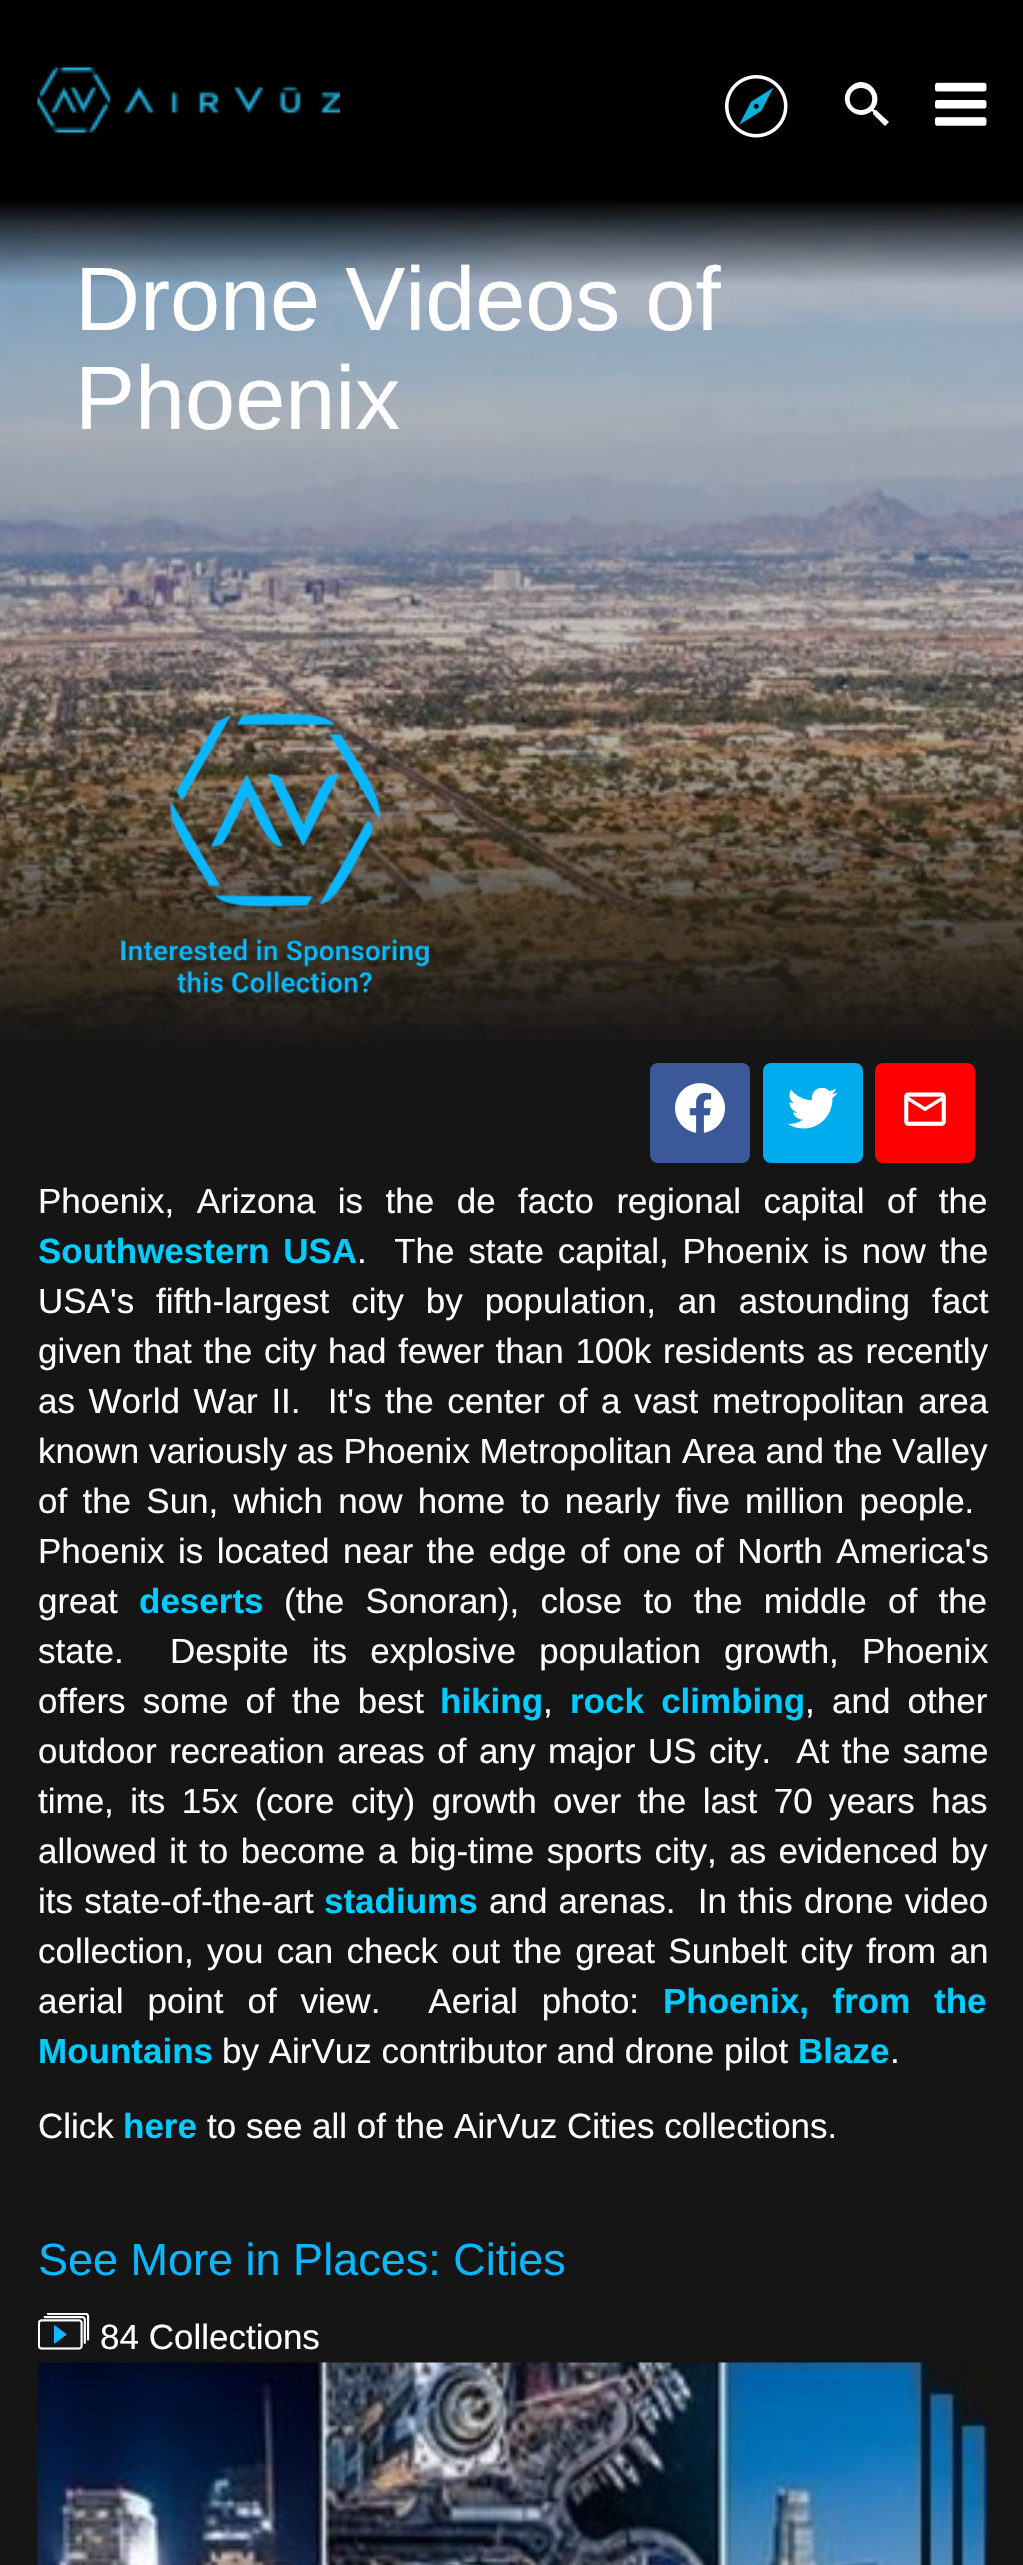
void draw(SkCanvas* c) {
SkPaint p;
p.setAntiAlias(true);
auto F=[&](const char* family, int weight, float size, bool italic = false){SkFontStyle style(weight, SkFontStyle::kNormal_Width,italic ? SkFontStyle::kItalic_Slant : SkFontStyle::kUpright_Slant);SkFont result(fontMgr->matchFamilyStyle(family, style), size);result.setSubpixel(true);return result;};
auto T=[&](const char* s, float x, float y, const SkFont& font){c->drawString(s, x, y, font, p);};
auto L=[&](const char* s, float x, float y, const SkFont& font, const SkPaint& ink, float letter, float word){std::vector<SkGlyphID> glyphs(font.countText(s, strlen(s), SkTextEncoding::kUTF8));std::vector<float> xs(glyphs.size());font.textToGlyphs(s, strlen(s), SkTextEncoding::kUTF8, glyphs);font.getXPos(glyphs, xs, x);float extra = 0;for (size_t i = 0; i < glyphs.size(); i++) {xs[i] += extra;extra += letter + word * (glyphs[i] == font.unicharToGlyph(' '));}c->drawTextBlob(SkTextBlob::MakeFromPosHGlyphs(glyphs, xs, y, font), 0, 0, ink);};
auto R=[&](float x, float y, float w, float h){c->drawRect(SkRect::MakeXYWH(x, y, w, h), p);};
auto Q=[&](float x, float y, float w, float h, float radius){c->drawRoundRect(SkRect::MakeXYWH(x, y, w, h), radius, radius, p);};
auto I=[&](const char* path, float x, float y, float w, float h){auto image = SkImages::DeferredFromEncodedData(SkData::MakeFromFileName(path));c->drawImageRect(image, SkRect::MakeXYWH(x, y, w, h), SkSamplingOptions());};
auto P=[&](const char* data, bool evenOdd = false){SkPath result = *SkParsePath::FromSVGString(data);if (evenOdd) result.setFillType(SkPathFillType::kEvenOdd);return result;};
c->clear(0xff151516);
p.setColor(0xff000000);
R(0,0,1023,200);
I("1.png",37,67,303,66);
I("2.png",725,75,63,63);
p.setColor(0xffffffff);
c->drawPath(P("M861 110c15 0 15-22 0-22c-15 0-15 22 0 22zm15 0l13 12l-4 4l-12-12v-2l-1-1c-16 13-37-9-22-24c15-15 36 7 24 22v1z"),p);
I("3.png",935,82,52,44);
I("4.png",0,200,1023,846);
{
const SkColor colors[] = {0xff000000,0x40151516,0x40151516,0xff151516};
const float stops[] = {0,.1,.6,1};
const SkPoint ends[] = {{512,200}, {513,1048}};
p.setShader(SkGradientShader::MakeLinear(ends, colors, stops, 4, SkTileMode::kClamp));
p.setAlpha(255);
}
R(0,200,1023,846);
auto f1 = F("Liberation Sans",400,90);
p.setShader(nullptr);
p.setColor(0xffffffff);
T("Drone Videos of",75,330,f1);
T("Phoenix",75,429,f1);
I("5.png",121,713,308,281);
p.setColor(0xff3b5998);
Q(650,1063,100,100,8);
I("6.png",675,1083,50,50);
p.setColor(0xff00aced);
Q(763,1063,100,100,8);
I("7.png",787,1087,51,42);
p.setColor(0xffff0000);
Q(875,1063,100,100,8);
I("8.png",904,1092,42,34);
auto f2 = F("Liberation Sans",400,35);
p.setColor(0xffffffff);
L("Phoenix, Arizona is the de facto regional capital of the",38,1213,f2,p,0,12.75);
auto f3 = F("Liberation Sans",700,35);
p.setColor(0xff00ccff);
L("Southwestern USA",38,1263,f3,p,0,4);
p.setColor(0xffffffff);
L(".  The state capital, Phoenix is now the",357,1263,f2,p,0,4);
L("USA's fifth-largest city by population, an astounding fact",38,1313,f2,p,0,12.25);
L("given that the city had fewer than 100k residents as recently",38,1363,f2,p,0,2);
L("as World War II.  It's the center of a vast metropolitan area",38,1413,f2,p,0,3.9);
T("known variously as Phoenix Metropolitan Area and the Valley",38,1463,f2);
L("of the Sun, which now home to nearly five million people.",38,1513,f2,p,0,5.5);
L("Phoenix is located near the edge of one of North America's",38,1563,f2,p,0,3.75);
T("great",38,1613,f2);
p.setColor(0xff00ccff);
T("deserts",139,1613,f3);
p.setColor(0xffffffff);
L("(the Sonoran), close to the middle of the",284,1613,f2,p,0,11.5);
L("state.  Despite its explosive population growth, Phoenix",38,1663,f2,p,0,13.5);
L("offers some of the best",38,1713,f2,p,0,7.5);
p.setColor(0xff00ccff);
T("hiking",440,1713,f3);
p.setColor(0xffffffff);
T(",",543,1713,f2);
p.setColor(0xff00ccff);
L("rock climbing",570,1713,f3,p,0,7.5);
p.setColor(0xffffffff);
L(", and other",805,1713,f2,p,0,7.5);
L("outdoor recreation areas of any major US city.  At the same",38,1763,f2,p,0,2.75);
L("time, its 15x (core city) growth over the last 70 years has",38,1813,f2,p,0,6.75);
L("allowed it to become a big-time sports city, as evidenced by",38,1863,f2,p,0,2.75);
L("its state-of-the-art",38,1913,f2,p,0,1.5);
p.setColor(0xff00ccff);
T("stadiums",324,1913,f3);
p.setColor(0xffffffff);
L("and arenas.  In this drone video",489,1913,f2,p,0,1.5);
L("collection, you can check out the great Sunbelt city from an",38,1963,f2,p,0,3.6);
L("aerial point of view.  Aerial photo:",38,2013,f2,p,0,14.25);
p.setColor(0xff00ccff);
L("Phoenix, from the",663,2013,f3,p,0,14);
T("Mountains",38,2063,f3);
p.setColor(0xffffffff);
T("by AirVuz contributor and drone pilot",222,2063,f2);
p.setColor(0xff00ccff);
T("Blaze",798,2063,f3);
p.setColor(0xffffffff);
T(".",890,2063,f2);
T("Click",38,2138,f2);
p.setColor(0xff00ccff);
T("here",123,2138,f3);
p.setColor(0xffffffff);
T("to see all of the AirVuz Cities collections.",207,2138,f2);
auto f4 = F("Liberation Sans",400,45);
p.setColor(0xff0ab7ff);
T("See More in Places: Cities",38,2275,f4);
I("9.png",38,2313,52,37);
p.setColor(0xffffffff);
T("84 Collections",100,2349,f2);
I("10.png",37,2362,951,203);
}
